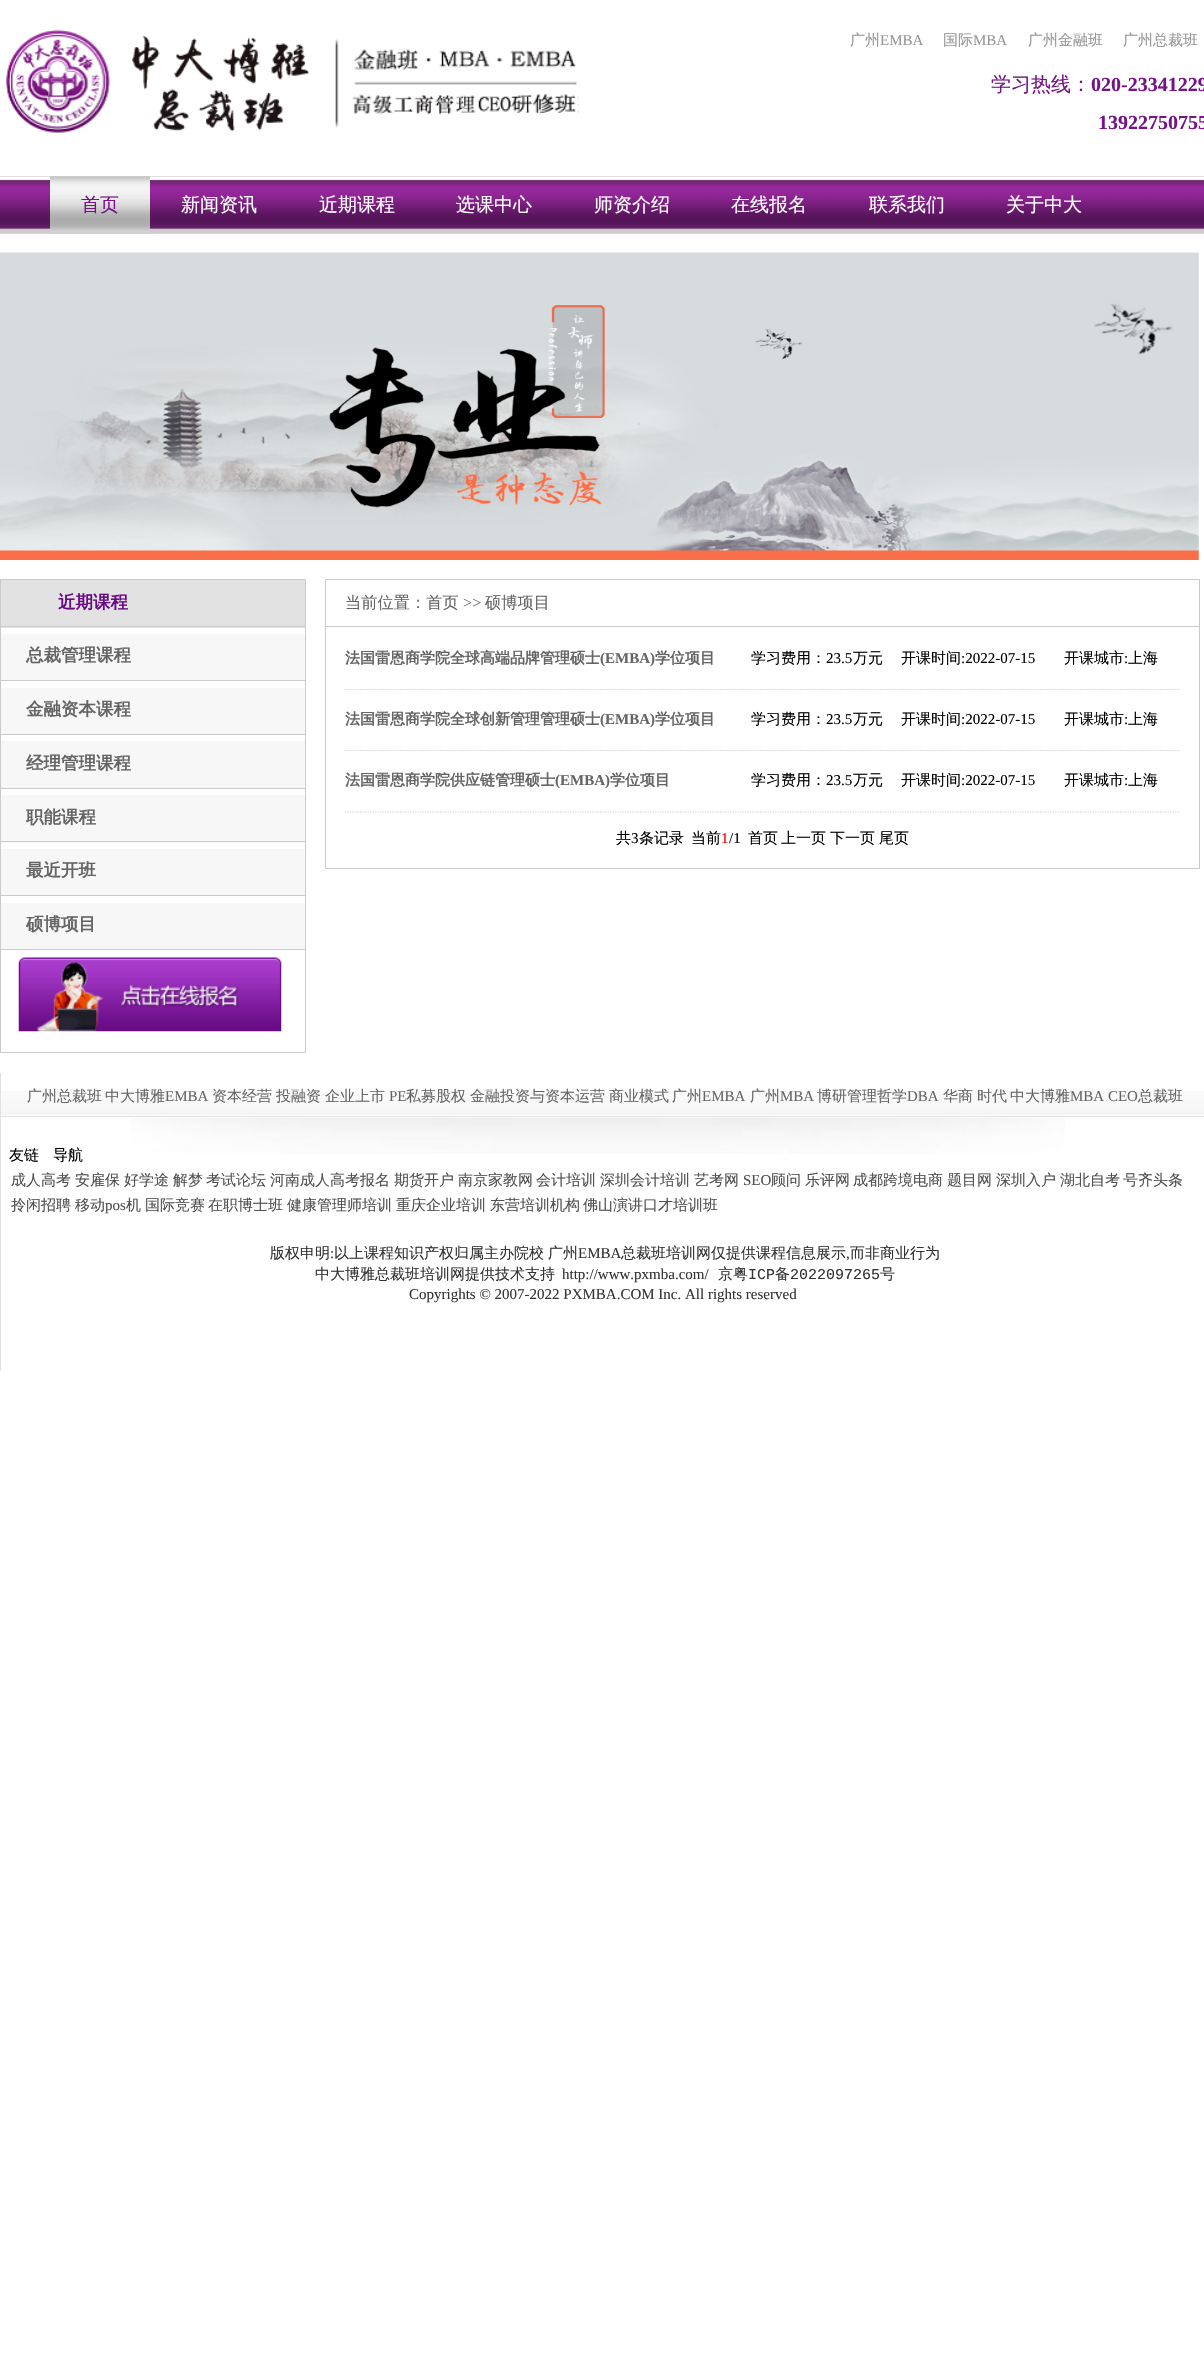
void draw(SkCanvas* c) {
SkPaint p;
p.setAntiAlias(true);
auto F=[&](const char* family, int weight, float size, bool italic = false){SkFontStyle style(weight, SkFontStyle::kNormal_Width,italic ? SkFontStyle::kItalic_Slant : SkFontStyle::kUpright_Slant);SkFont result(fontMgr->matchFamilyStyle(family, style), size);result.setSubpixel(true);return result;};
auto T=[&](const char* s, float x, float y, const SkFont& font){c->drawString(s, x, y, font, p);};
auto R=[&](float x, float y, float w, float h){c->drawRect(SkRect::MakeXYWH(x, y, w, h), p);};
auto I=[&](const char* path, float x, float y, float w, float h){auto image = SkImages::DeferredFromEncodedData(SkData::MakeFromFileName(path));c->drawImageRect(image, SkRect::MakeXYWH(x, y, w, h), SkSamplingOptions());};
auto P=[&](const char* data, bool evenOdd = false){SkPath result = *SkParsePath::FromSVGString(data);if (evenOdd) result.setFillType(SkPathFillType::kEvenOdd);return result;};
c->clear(0xffffffff);
I("1.png",0,176,1204,1);
I("2.png",6,29,573,104);
auto f1 = F("WenQuanYi Zen Hei",500,15);
p.setColor(0xff969696);
T("广州",850,45,f1);
auto f2 = F("Liberation Serif",400,15);
T("EMBA",880,45,f2);
T("国际",943,45,f1);
T("MBA",973,45,f2);
T("广州金融班",1028,45,f1);
T("广州总裁班",1123,45,f1);
auto f3 = F("WenQuanYi Zen Hei",500,20);
p.setColor(0xff761387);
T("学习热线：",991,91,f3);
auto f4 = F("Liberation Serif",700,20);
T("020-23341229",1091,91,f4);
T("13922750755",1098,129,f4);
I("3.png",0,176,1204,58);
I("4.png",50,176,100,58);
auto f5 = F("WenQuanYi Zen Hei",500,19);
T("首页",81,211,f5);
p.setColor(0xffffffff);
T("新闻资讯",181,211,f5);
T("近期课程",319,211,f5);
T("选课中心",456,211,f5);
T("师资介绍",594,211,f5);
T("在线报名",731,211,f5);
T("联系我们",869,211,f5);
T("关于中大",1006,211,f5);
I("5.png",0,252,1199,308);
p.setStroke(true);
p.setStrokeWidth(1);
p.setColor(0xffcccbcb);
c->drawRect(SkRect::MakeXYWH(.5,579.5,305,473),p);
p.setStroke(false);
p.setColor(0xffe2e2e2);
R(1,580,304,48);
p.setColor(0xffcccbcb);
R(1,626,304,1);
auto f6 = F("WenQuanYi Zen Hei",700,17.5);
p.setColor(0xff690b85);
T("近期课程",58,608,f6);
p.setColor(0xfff7f7f7);
R(1,634,304,46);
p.setColor(0xffcccbcb);
R(1,680,304,1);
p.setColor(0xff656565);
T("总裁管理课程",26,661,f6);
p.setColor(0xfff7f7f7);
R(1,688,304,46);
p.setColor(0xffcccbcb);
R(1,734,304,1);
p.setColor(0xff656565);
T("金融资本课程",26,715,f6);
p.setColor(0xfff7f7f7);
R(1,741,304,47);
p.setColor(0xffcccbcb);
R(1,788,304,1);
p.setColor(0xff656565);
T("经理管理课程",26,769,f6);
p.setColor(0xfff7f7f7);
R(1,795,304,48);
p.setColor(0xffcccbcb);
R(1,841,304,1);
p.setColor(0xff656565);
T("职能课程",26,823,f6);
p.setColor(0xfff7f7f7);
R(1,849,304,46);
p.setColor(0xffcccbcb);
R(1,895,304,1);
p.setColor(0xff656565);
T("最近开班",26,876,f6);
p.setColor(0xfff7f7f7);
R(1,903,304,46);
p.setColor(0xffcccbcb);
R(1,949,304,1);
p.setColor(0xff656565);
T("硕博项目",26,930,f6);
I("6.png",18,957,264,75);
p.setStroke(true);
p.setColor(0xffcccbcb);
c->drawRect(SkRect::MakeXYWH(325.5,579.5,874,289),p);
p.setStroke(false);
R(326,626,873,1);
auto f7 = F("WenQuanYi Zen Hei",500,16.25);
p.setColor(0xff656565);
T("当前位置：首页",345,608,f7);
auto f8 = F("Liberation Serif",400,16.25);
T(">>",463,608,f8);
T("硕博项目",485,608,f7);
p.setStroke(true);
p.setStrokeWidth(1.2);
p.setColor(0xffd0d0d0);
p.setPathEffect(SkDashPathEffect::Make({{1.25f,1.25f}}, 0));
c->drawPath(P("M345 689.5h835"),p);
p.setPathEffect(nullptr);
auto f9 = F("WenQuanYi Zen Hei",700,15);
p.setStroke(false);
p.setColor(0xff656565);
T("法国雷恩商学院全球高端品牌管理硕士",345,663,f9);
auto f10 = F("Liberation Serif",700,15);
T("(EMBA)",600,663,f10);
T("学位项目",655,663,f9);
p.setColor(0xff000000);
T("学习费用：",751,663,f1);
T("23.5",826,663,f2);
T("万元",853,663,f1);
T("开课时间",901,663,f1);
T(":2022-07-15",961,663,f2);
T("开课城市",1064,663,f1);
T(":",1124,663,f2);
T("上海",1128,663,f1);
p.setStroke(true);
p.setColor(0xffd0d0d0);
p.setPathEffect(SkDashPathEffect::Make({{1.25f,1.25f}}, 0));
c->drawPath(P("M345 750.5h835"),p);
p.setPathEffect(nullptr);
p.setStroke(false);
p.setColor(0xff656565);
T("法国雷恩商学院全球创新管理管理硕士",345,724,f9);
T("(EMBA)",600,724,f10);
T("学位项目",655,724,f9);
p.setColor(0xff000000);
T("学习费用：",751,724,f1);
T("23.5",826,724,f2);
T("万元",853,724,f1);
T("开课时间",901,724,f1);
T(":2022-07-15",961,724,f2);
T("开课城市",1064,724,f1);
T(":",1124,724,f2);
T("上海",1128,724,f1);
p.setStroke(true);
p.setColor(0xffd0d0d0);
p.setPathEffect(SkDashPathEffect::Make({{1.25f,1.25f}}, 0));
c->drawPath(P("M345 812h835"),p);
p.setPathEffect(nullptr);
p.setStroke(false);
p.setColor(0xff656565);
T("法国雷恩商学院供应链管理硕士",345,785,f9);
T("(EMBA)",555,785,f10);
T("学位项目",610,785,f9);
p.setColor(0xff000000);
T("学习费用：",751,785,f1);
T("23.5",826,785,f2);
T("万元",853,785,f1);
T("开课时间",901,785,f1);
T(":2022-07-15",961,785,f2);
T("开课城市",1064,785,f1);
T(":",1124,785,f2);
T("上海",1128,785,f1);
T("共",616,843,f1);
T("3",631,843,f2);
T("条记录",639,843,f1);
T("当前",691,843,f1);
p.setColor(0xffff0000);
T("1",721,843,f2);
p.setColor(0xff000000);
T("/1",729,843,f2);
T("首页",748,843,f1);
T("上一页",781,843,f1);
T("下一页",830,843,f1);
T("尾页",879,843,f1);
p.setColor(0xffe2e1e1);
R(0,1073,1,298);
I("7.png",1,1091,1203,24);
R(1,1116,1203,1);
p.setColor(0xff656565);
T("广州总裁班",27,1101,f1);
T("中大博雅",105,1101,f1);
T("EMBA",165,1101,f2);
T("资本经营",212,1101,f1);
T("投融资",276,1101,f1);
T("企业上市",325,1101,f1);
T("PE",389,1101,f2);
T("私募股权",406,1101,f1);
T("金融投资与资本运营",470,1101,f1);
T("商业模式",609,1101,f1);
T("广州",672,1101,f1);
T("EMBA",702,1101,f2);
T("广州",750,1101,f1);
T("MBA",780,1101,f2);
T("博研管理哲学",817,1101,f1);
T("DBA",907,1101,f2);
T("华商",943,1101,f1);
T("时代",977,1101,f1);
T("中大博雅",1010,1101,f1);
T("MBA CEO",1070,1101,f2);
T("总裁班",1138,1101,f1);
I("8.png",131,1117,934,37);
p.setColor(0xff000000);
T("友链",9,1160,f1);
T("导航",53,1160,f1);
p.setColor(0xff4f4f4f);
T("成人高考",11,1185,f1);
T("安雇保",75,1185,f1);
T("好学途",124,1185,f1);
T("解梦",173,1185,f1);
T("考试论坛",206,1185,f1);
T("河南成人高考报名",270,1185,f1);
T("期货开户",394,1185,f1);
T("南京家教网",458,1185,f1);
T("会计培训",536,1185,f1);
T("深圳会计培训",600,1185,f1);
T("艺考网",694,1185,f1);
T("SEO",743,1185,f2);
T("顾问",771,1185,f1);
T("乐评网",805,1185,f1);
T("成都跨境电商",853,1185,f1);
T("题目网",947,1185,f1);
T("深圳入户",996,1185,f1);
T("湖北自考",1060,1185,f1);
T("号齐头条",1123,1185,f1);
T("拎闲招聘",11,1210,f1);
T("移动",75,1210,f1);
T("pos",105,1210,f2);
T("机",126,1210,f1);
T("国际竞赛",145,1210,f1);
T("在职博士班",208,1210,f1);
T("健康管理师培训",287,1210,f1);
T("重庆企业培训",396,1210,f1);
T("东营培训机构",490,1210,f1);
T("佛山演讲口才培训班",583,1210,f1);
p.setColor(0xff333333);
T("版权申明",270,1258,f1);
T(":",330,1258,f2);
T("以上课程知识产权归属主办院校",334,1258,f1);
T("广州",548,1258,f1);
T("EMBA",578,1258,f2);
T("总裁班培训网仅提供课程信息展示",621,1258,f1);
T(",",846,1258,f2);
T("而非商业行为",850,1258,f1);
T("中大博雅总裁班培训网提供技术支持",315,1279,f1);
T("http://www.pxmba.com/",562,1279,f2);
T("京粤",718,1279,f1);
auto f11 = F("Liberation Mono",400,15);
T("ICP",748,1279,f11);
T("备",775,1279,f1);
T("2022097265",790,1279,f11);
T("号",880,1279,f1);
T("Copyrights © 2007-2022 PXMBA.COM Inc. All rights reserved",409,1299,f2);
}
